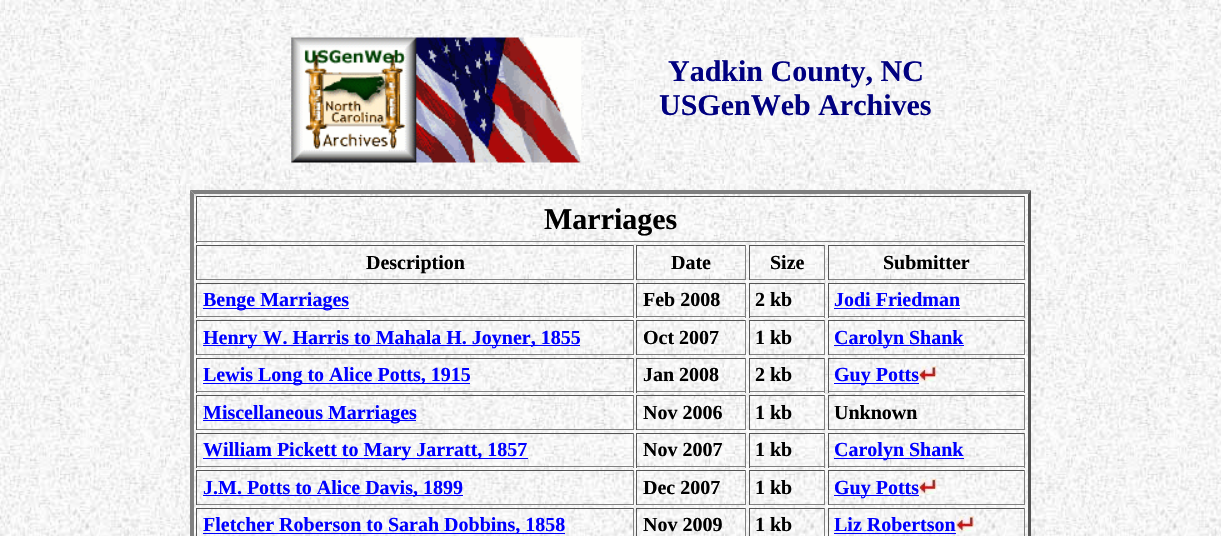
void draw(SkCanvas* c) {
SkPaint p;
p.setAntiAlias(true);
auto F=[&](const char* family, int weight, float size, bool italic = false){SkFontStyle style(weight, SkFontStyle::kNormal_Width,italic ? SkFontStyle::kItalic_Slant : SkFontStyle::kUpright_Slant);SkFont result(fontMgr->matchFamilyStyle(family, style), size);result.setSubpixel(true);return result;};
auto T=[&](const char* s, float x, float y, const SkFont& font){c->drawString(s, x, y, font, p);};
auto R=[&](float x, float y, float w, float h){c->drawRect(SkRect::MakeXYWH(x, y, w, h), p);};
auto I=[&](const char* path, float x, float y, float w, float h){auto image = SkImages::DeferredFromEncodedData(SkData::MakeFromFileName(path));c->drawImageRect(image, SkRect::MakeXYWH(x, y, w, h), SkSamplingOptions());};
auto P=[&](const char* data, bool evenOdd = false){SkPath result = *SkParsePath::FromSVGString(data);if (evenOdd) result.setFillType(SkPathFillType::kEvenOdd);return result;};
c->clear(0xffffffff);
I("1.png",0,0,1221,536);
I("2.png",291,37,291,126);
auto f1 = F("Liberation Serif",700,30);
p.setColor(0xff000080);
T("Yadkin County, NC",668,81,f1);
T("USGenWeb Archives",659,115,f1);
p.setColor(0xff808080);
c->drawPath(P("M190 190h841l-3 4h-834z"),p);
p.setColor(0xff555555);
c->drawPath(P("M1031 190v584l-3-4v-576z"),p);
p.setColor(0xff808080);
c->drawPath(P("M190 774v-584l4 4v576z"),p);
p.setColor(0xff555555);
R(196,196,829,1);
p.setColor(0xff808080);
R(1024,196,1,47);
R(196,241,829,1);
p.setColor(0xff555555);
R(196,196,1,47);
p.setColor(0xff000000);
T("Marriages",544,229,f1);
p.setColor(0xff555555);
R(196,245,438,1);
p.setColor(0xff808080);
R(633,245,1,35);
R(196,279,438,1);
p.setColor(0xff555555);
R(196,245,1,35);
auto f2 = F("Liberation Serif",700,20);
p.setColor(0xff000000);
T("Description",366,269,f2);
p.setColor(0xff555555);
R(636,245,110,1);
p.setColor(0xff808080);
R(745,245,1,35);
R(636,279,110,1);
p.setColor(0xff555555);
R(636,245,1,35);
p.setColor(0xff000000);
T("Date",671,269,f2);
p.setColor(0xff555555);
R(749,245,76,1);
p.setColor(0xff808080);
R(824,245,1,35);
R(749,279,76,1);
p.setColor(0xff555555);
R(749,245,1,35);
p.setColor(0xff000000);
T("Size",770,269,f2);
p.setColor(0xff555555);
R(828,245,197,1);
p.setColor(0xff808080);
R(1024,245,1,35);
R(828,279,197,1);
p.setColor(0xff555555);
R(828,245,1,35);
p.setColor(0xff000000);
T("Submitter",883,269,f2);
p.setColor(0xff555555);
R(196,283,438,1);
p.setColor(0xff808080);
R(633,283,1,35);
R(196,316,438,1);
p.setColor(0xff555555);
R(196,283,1,35);
p.setColor(0xff0000ff);
R(203,308,146,1);
T("Benge Marriages",203,306,f2);
p.setColor(0xff555555);
R(636,283,110,1);
p.setColor(0xff808080);
R(745,283,1,35);
R(636,316,110,1);
p.setColor(0xff555555);
R(636,283,1,35);
p.setColor(0xff000000);
T("Feb 2008",643,306,f2);
p.setColor(0xff555555);
R(749,283,76,1);
p.setColor(0xff808080);
R(824,283,1,35);
R(749,316,76,1);
p.setColor(0xff555555);
R(749,283,1,35);
p.setColor(0xff000000);
T("2 kb",755,306,f2);
p.setColor(0xff555555);
R(828,283,197,1);
p.setColor(0xff808080);
R(1024,283,1,35);
R(828,316,197,1);
p.setColor(0xff555555);
R(828,283,1,35);
p.setColor(0xff0000ff);
T("Jodi Friedman",834,306,f2);
R(834,308,126,1);
p.setColor(0xff555555);
R(196,320,438,1);
p.setColor(0xff808080);
R(633,320,1,35);
R(196,354,438,1);
p.setColor(0xff555555);
R(196,320,1,35);
p.setColor(0xff0000ff);
R(203,345,377,1);
T("Henry W. Harris to Mahala H. Joyner, 1855",203,344,f2);
p.setColor(0xff555555);
R(636,320,110,1);
p.setColor(0xff808080);
R(745,320,1,35);
R(636,354,110,1);
p.setColor(0xff555555);
R(636,320,1,35);
p.setColor(0xff000000);
T("Oct 2007",643,344,f2);
p.setColor(0xff555555);
R(749,320,76,1);
p.setColor(0xff808080);
R(824,320,1,35);
R(749,354,76,1);
p.setColor(0xff555555);
R(749,320,1,35);
p.setColor(0xff000000);
T("1 kb",755,344,f2);
p.setColor(0xff555555);
R(828,320,197,1);
p.setColor(0xff808080);
R(1024,320,1,35);
R(828,354,197,1);
p.setColor(0xff555555);
R(828,320,1,35);
p.setColor(0xff0000ff);
R(834,345,130,1);
T("Carolyn Shank",834,344,f2);
p.setColor(0xff555555);
R(196,358,438,1);
p.setColor(0xff808080);
R(633,358,1,35);
R(196,391,438,1);
p.setColor(0xff555555);
R(196,358,1,35);
p.setColor(0xff0000ff);
R(203,383,267,1);
T("Lewis Long to Alice Potts, 1915",203,381,f2);
p.setColor(0xff555555);
R(636,358,110,1);
p.setColor(0xff808080);
R(745,358,1,35);
R(636,391,110,1);
p.setColor(0xff555555);
R(636,358,1,35);
p.setColor(0xff000000);
T("Jan 2008",643,381,f2);
p.setColor(0xff555555);
R(749,358,76,1);
p.setColor(0xff808080);
R(824,358,1,35);
R(749,391,76,1);
p.setColor(0xff555555);
R(749,358,1,35);
p.setColor(0xff000000);
T("2 kb",755,381,f2);
p.setColor(0xff555555);
R(828,358,197,1);
p.setColor(0xff808080);
R(1024,358,1,35);
R(828,391,197,1);
p.setColor(0xff555555);
R(828,358,1,35);
p.setColor(0xff0000ff);
R(834,383,85,1);
T("Guy Potts",834,381,f2);
I("3.png",918,366,19,16);
p.setColor(0xff555555);
R(196,395,438,1);
p.setColor(0xff808080);
R(633,395,1,35);
R(196,429,438,1);
p.setColor(0xff555555);
R(196,395,1,35);
p.setColor(0xff0000ff);
R(203,420,213,1);
T("Miscellaneous Marriages",203,419,f2);
p.setColor(0xff555555);
R(636,395,110,1);
p.setColor(0xff808080);
R(745,395,1,35);
R(636,429,110,1);
p.setColor(0xff555555);
R(636,395,1,35);
p.setColor(0xff000000);
T("Nov 2006",643,419,f2);
p.setColor(0xff555555);
R(749,395,76,1);
p.setColor(0xff808080);
R(824,395,1,35);
R(749,429,76,1);
p.setColor(0xff555555);
R(749,395,1,35);
p.setColor(0xff000000);
T("1 kb",755,419,f2);
p.setColor(0xff555555);
R(828,395,197,1);
p.setColor(0xff808080);
R(1024,395,1,35);
R(828,429,197,1);
p.setColor(0xff555555);
R(828,395,1,35);
p.setColor(0xff000000);
T("Unknown",834,419,f2);
p.setColor(0xff555555);
R(196,433,438,1);
p.setColor(0xff808080);
R(633,433,1,35);
R(196,466,438,1);
p.setColor(0xff555555);
R(196,433,1,35);
p.setColor(0xff0000ff);
R(203,458,325,1);
T("William Pickett to Mary Jarratt, 1857",203,456,f2);
p.setColor(0xff555555);
R(636,433,110,1);
p.setColor(0xff808080);
R(745,433,1,35);
R(636,466,110,1);
p.setColor(0xff555555);
R(636,433,1,35);
p.setColor(0xff000000);
T("Nov 2007",643,456,f2);
p.setColor(0xff555555);
R(749,433,76,1);
p.setColor(0xff808080);
R(824,433,1,35);
R(749,466,76,1);
p.setColor(0xff555555);
R(749,433,1,35);
p.setColor(0xff000000);
T("1 kb",755,456,f2);
p.setColor(0xff555555);
R(828,433,197,1);
p.setColor(0xff808080);
R(1024,433,1,35);
R(828,466,197,1);
p.setColor(0xff555555);
R(828,433,1,35);
p.setColor(0xff0000ff);
R(834,458,130,1);
T("Carolyn Shank",834,456,f2);
p.setColor(0xff555555);
R(196,470,438,1);
p.setColor(0xff808080);
R(633,470,1,35);
R(196,504,438,1);
p.setColor(0xff555555);
R(196,470,1,35);
p.setColor(0xff0000ff);
R(203,495,260,1);
T("J.M. Potts to Alice Davis, 1899",203,494,f2);
p.setColor(0xff555555);
R(636,470,110,1);
p.setColor(0xff808080);
R(745,470,1,35);
R(636,504,110,1);
p.setColor(0xff555555);
R(636,470,1,35);
p.setColor(0xff000000);
T("Dec 2007",643,494,f2);
p.setColor(0xff555555);
R(749,470,76,1);
p.setColor(0xff808080);
R(824,470,1,35);
R(749,504,76,1);
p.setColor(0xff555555);
R(749,470,1,35);
p.setColor(0xff000000);
T("1 kb",755,494,f2);
p.setColor(0xff555555);
R(828,470,197,1);
p.setColor(0xff808080);
R(1024,470,1,35);
R(828,504,197,1);
p.setColor(0xff555555);
R(828,470,1,35);
p.setColor(0xff0000ff);
R(834,495,85,1);
T("Guy Potts",834,494,f2);
I("4.png",918,478,19,16);
p.setColor(0xff555555);
R(196,508,438,1);
p.setColor(0xff808080);
R(633,508,1,28);
p.setColor(0xff555555);
R(196,508,1,28);
p.setColor(0xff0000ff);
R(203,533,362,1);
T("Fletcher Roberson to Sarah Dobbins, 1858",203,531,f2);
p.setColor(0xff555555);
R(636,508,110,1);
p.setColor(0xff808080);
R(745,508,1,28);
p.setColor(0xff555555);
R(636,508,1,28);
p.setColor(0xff000000);
T("Nov 2009",643,531,f2);
p.setColor(0xff555555);
R(749,508,76,1);
p.setColor(0xff808080);
R(824,508,1,28);
p.setColor(0xff555555);
R(749,508,1,28);
p.setColor(0xff000000);
T("1 kb",755,531,f2);
p.setColor(0xff555555);
R(828,508,197,1);
p.setColor(0xff808080);
R(1024,508,1,28);
p.setColor(0xff555555);
R(828,508,1,28);
p.setColor(0xff0000ff);
T("Liz Robertson",834,531,f2);
R(834,533,122,1);
I("5.png",956,516,18,16);
}
